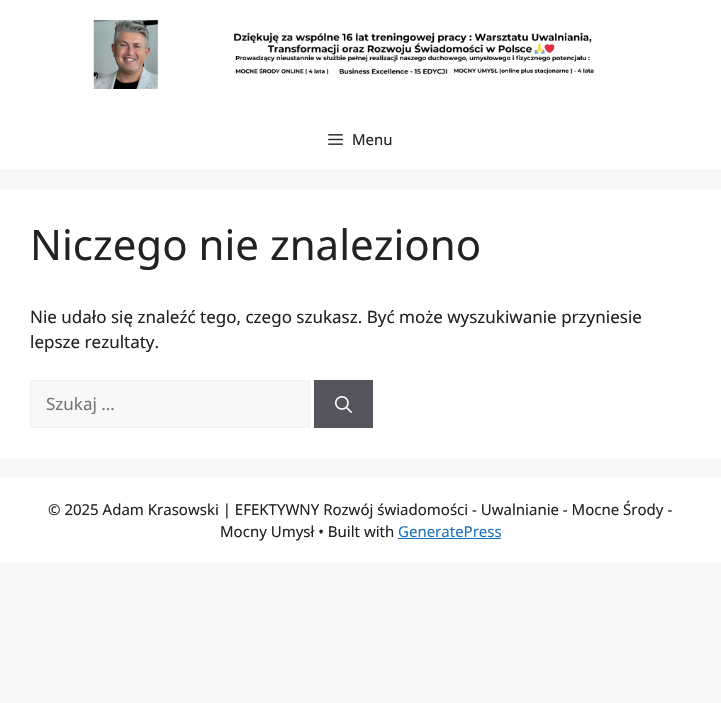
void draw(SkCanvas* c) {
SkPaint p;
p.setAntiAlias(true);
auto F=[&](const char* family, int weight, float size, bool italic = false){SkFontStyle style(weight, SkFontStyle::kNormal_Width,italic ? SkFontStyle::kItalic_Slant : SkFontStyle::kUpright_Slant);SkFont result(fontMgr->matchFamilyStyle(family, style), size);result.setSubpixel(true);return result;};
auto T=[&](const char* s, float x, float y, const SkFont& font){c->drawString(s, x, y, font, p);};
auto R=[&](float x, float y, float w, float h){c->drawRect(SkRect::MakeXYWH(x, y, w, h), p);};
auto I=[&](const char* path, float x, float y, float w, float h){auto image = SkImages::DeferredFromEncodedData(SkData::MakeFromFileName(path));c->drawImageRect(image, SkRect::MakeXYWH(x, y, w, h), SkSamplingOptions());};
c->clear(0xfff7f8f9);
p.setColor(0xffffffff);
R(0,0,721,169);
I("1.png",93,20,501,69);
I("2.png",328,134,15,11);
auto f1 = F("Noto Sans",400,15);
p.setColor(0xff222222);
T("Menu",352,145,f1);
p.setColor(0xffffffff);
R(0,189,721,269);
auto f2 = F("Noto Sans",400,42);
p.setColor(0xff222222);
T("Niczego nie znaleziono",30,260,f2);
auto f3 = F("Noto Sans",400,17);
T("Nie udało się znaleźć tego, czego szukasz. Być może wyszukiwanie przyniesie",30,323,f3);
T("lepsze rezultaty.",30,348,f3);
p.setColor(0xfff7f8f9);
c->drawRect(SkRect::MakeXYWH(30.5,380.5,279,47),p);
p.setStroke(true);
p.setStrokeWidth(1);
p.setColor(0xfff0f0f0);
c->drawRect(SkRect::MakeXYWH(30.5,380.5,279,47),p);
p.setStroke(false);
p.setColor(0xff757575);
T("Szukaj …",46,410,f3);
p.setColor(0xff55555e);
R(314,380,59,48);
I("3.png",335,396,17,17);
p.setColor(0xffffffff);
R(0,478,721,85);
p.setColor(0xff222222);
T("© 2025 Adam Krasowski | EFEKTYWNY Rozwój świadomości - Uwalnianie - Mocne Środy -",48,515,f1);
T("Mocny Umysł • Built with",220,537,f1);
p.setColor(0xff1e73be);
T("GeneratePress",398,537,f1);
R(398,538,103,1);
}
